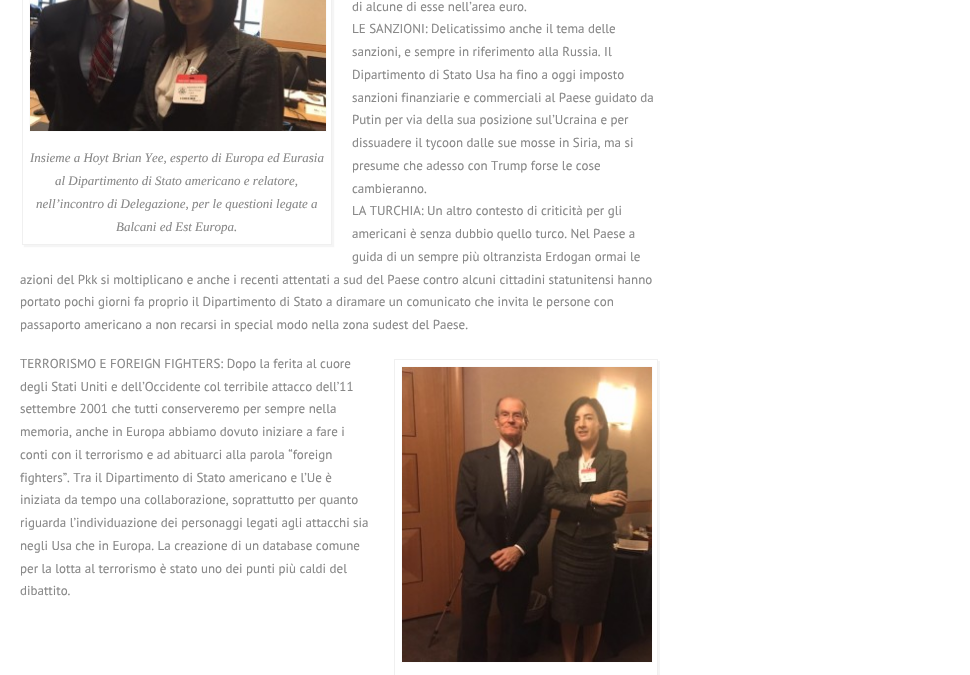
void draw(SkCanvas* c) {
SkPaint p;
p.setAntiAlias(true);
auto F=[&](const char* family, int weight, float size, bool italic = false){SkFontStyle style(weight, SkFontStyle::kNormal_Width,italic ? SkFontStyle::kItalic_Slant : SkFontStyle::kUpright_Slant);SkFont result(fontMgr->matchFamilyStyle(family, style), size);result.setSubpixel(true);return result;};
auto T=[&](const char* s, float x, float y, const SkFont& font){c->drawString(s, x, y, font, p);};
auto I=[&](const char* path, float x, float y, float w, float h){auto image = SkImages::DeferredFromEncodedData(SkData::MakeFromFileName(path));c->drawImageRect(image, SkRect::MakeXYWH(x, y, w, h), SkSamplingOptions());};
auto P=[&](const char* data, bool evenOdd = false){SkPath result = *SkParsePath::FromSVGString(data);if (evenOdd) result.setFillType(SkPathFillType::kEvenOdd);return result;};
c->clear(0xffffffff);
auto f1 = F("PT Sans",400,13);
p.setColor(0xff888888);
T("di alcune di esse nell’area euro.",352,11,f1);
T("LE SANZIONI: Delicatissimo anche il tema delle",352,33,f1);
T("sanzioni, e sempre in riferimento alla Russia. Il",352,56,f1);
T("Dipartimento di Stato Usa ha fino a oggi imposto",352,79,f1);
T("sanzioni finanziarie e commerciali al Paese guidato da",352,102,f1);
T("Putin per via della sua posizione sul’Ucraina e per",352,124,f1);
T("dissuadere il tycoon dalle sue mosse in Siria, ma si",352,147,f1);
T("presume che adesso con Trump forse le cose",352,170,f1);
T("cambieranno.",352,193,f1);
T("LA TURCHIA: Un altro contesto di criticità per gli",352,215,f1);
T("americani è senza dubbio quello turco. Nel Paese a",352,238,f1);
T("guida di un sempre più oltranzista Erdogan ormai le",352,261,f1);
T("azioni del Pkk si moltiplicano e anche i recenti attentati a sud del Paese contro alcuni cittadini statunitensi hanno",20,284,f1);
T("portato pochi giorni fa proprio il Dipartimento di Stato a diramare un comunicato che invita le persone con",20,306,f1);
T("passaporto americano a non recarsi in special modo nella zona sudest del Paese.",20,329,f1);
c->save();
c->clipPath(P("M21 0h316v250h-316zm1-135h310v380h-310z",true),true);
p.setColor(0x0a000000);
p.setMaskFilter(SkMaskFilter::MakeBlur(kNormal_SkBlurStyle, .5));
c->drawRect(SkRect::MakeXYWH(24,-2,310,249),p);
p.setMaskFilter(nullptr);
c->restore();
p.setStroke(true);
p.setStrokeWidth(1);
p.setColor(0xfff0f0f0);
c->drawRect(SkRect::MakeXYWH(22.5,-.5,309,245),p);
p.setColor(0xfffbfbfb);
c->drawRect(SkRect::MakeXYWH(29.5,-.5,297,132),p);
I("1.png",30,0,296,131);
auto f2 = F("Liberation Serif",400,13,true);
p.setStroke(false);
p.setColor(0xff888888);
T("Insieme a Hoyt Brian Yee, esperto di Europa ed Eurasia",30,162,f2);
T("al Dipartimento di Stato americano e relatore,",55,185,f2);
T("nell’incontro di Delegazione, per le questioni legate a",36,208,f2);
T("Balcani ed Est Europa.",116,231,f2);
T("TERRORISMO E FOREIGN FIGHTERS: Dopo la ferita al cuore",20,368,f1);
T("degli Stati Uniti e dell’Occidente col terribile attacco dell’11",20,391,f1);
T("settembre 2001 che tutti conserveremo per sempre nella",20,413,f1);
T("memoria, anche in Europa abbiamo dovuto iniziare a fare i",20,436,f1);
T("conti con il terrorismo e ad abituarci alla parola “foreign",20,459,f1);
T("fighters”. Tra il Dipartimento di Stato americano e l’Ue è",20,482,f1);
T("iniziata da tempo una collaborazione, soprattutto per quanto",20,504,f1);
T("riguarda l’individuazione dei personaggi legati agli attacchi sia",20,527,f1);
T("negli Usa che in Europa. La creazione di un database comune",20,550,f1);
T("per la lotta al terrorismo è stato uno dei punti più caldi del",20,573,f1);
T("dibattito.",20,595,f1);
c->save();
c->clipRect(SkRect::MakeXYWH(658,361,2,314));
p.setColor(0x0a000000);
p.setMaskFilter(SkMaskFilter::MakeBlur(kNormal_SkBlurStyle, .5));
c->drawRect(SkRect::MakeXYWH(396,361,264,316),p);
p.setMaskFilter(nullptr);
c->restore();
p.setStroke(true);
p.setColor(0xfff0f0f0);
c->drawRect(SkRect::MakeXYWH(394.5,359.5,263,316),p);
p.setColor(0xfffbfbfb);
c->drawRect(SkRect::MakeXYWH(401.5,366.5,251,296),p);
I("2.png",402,367,250,295);
}
